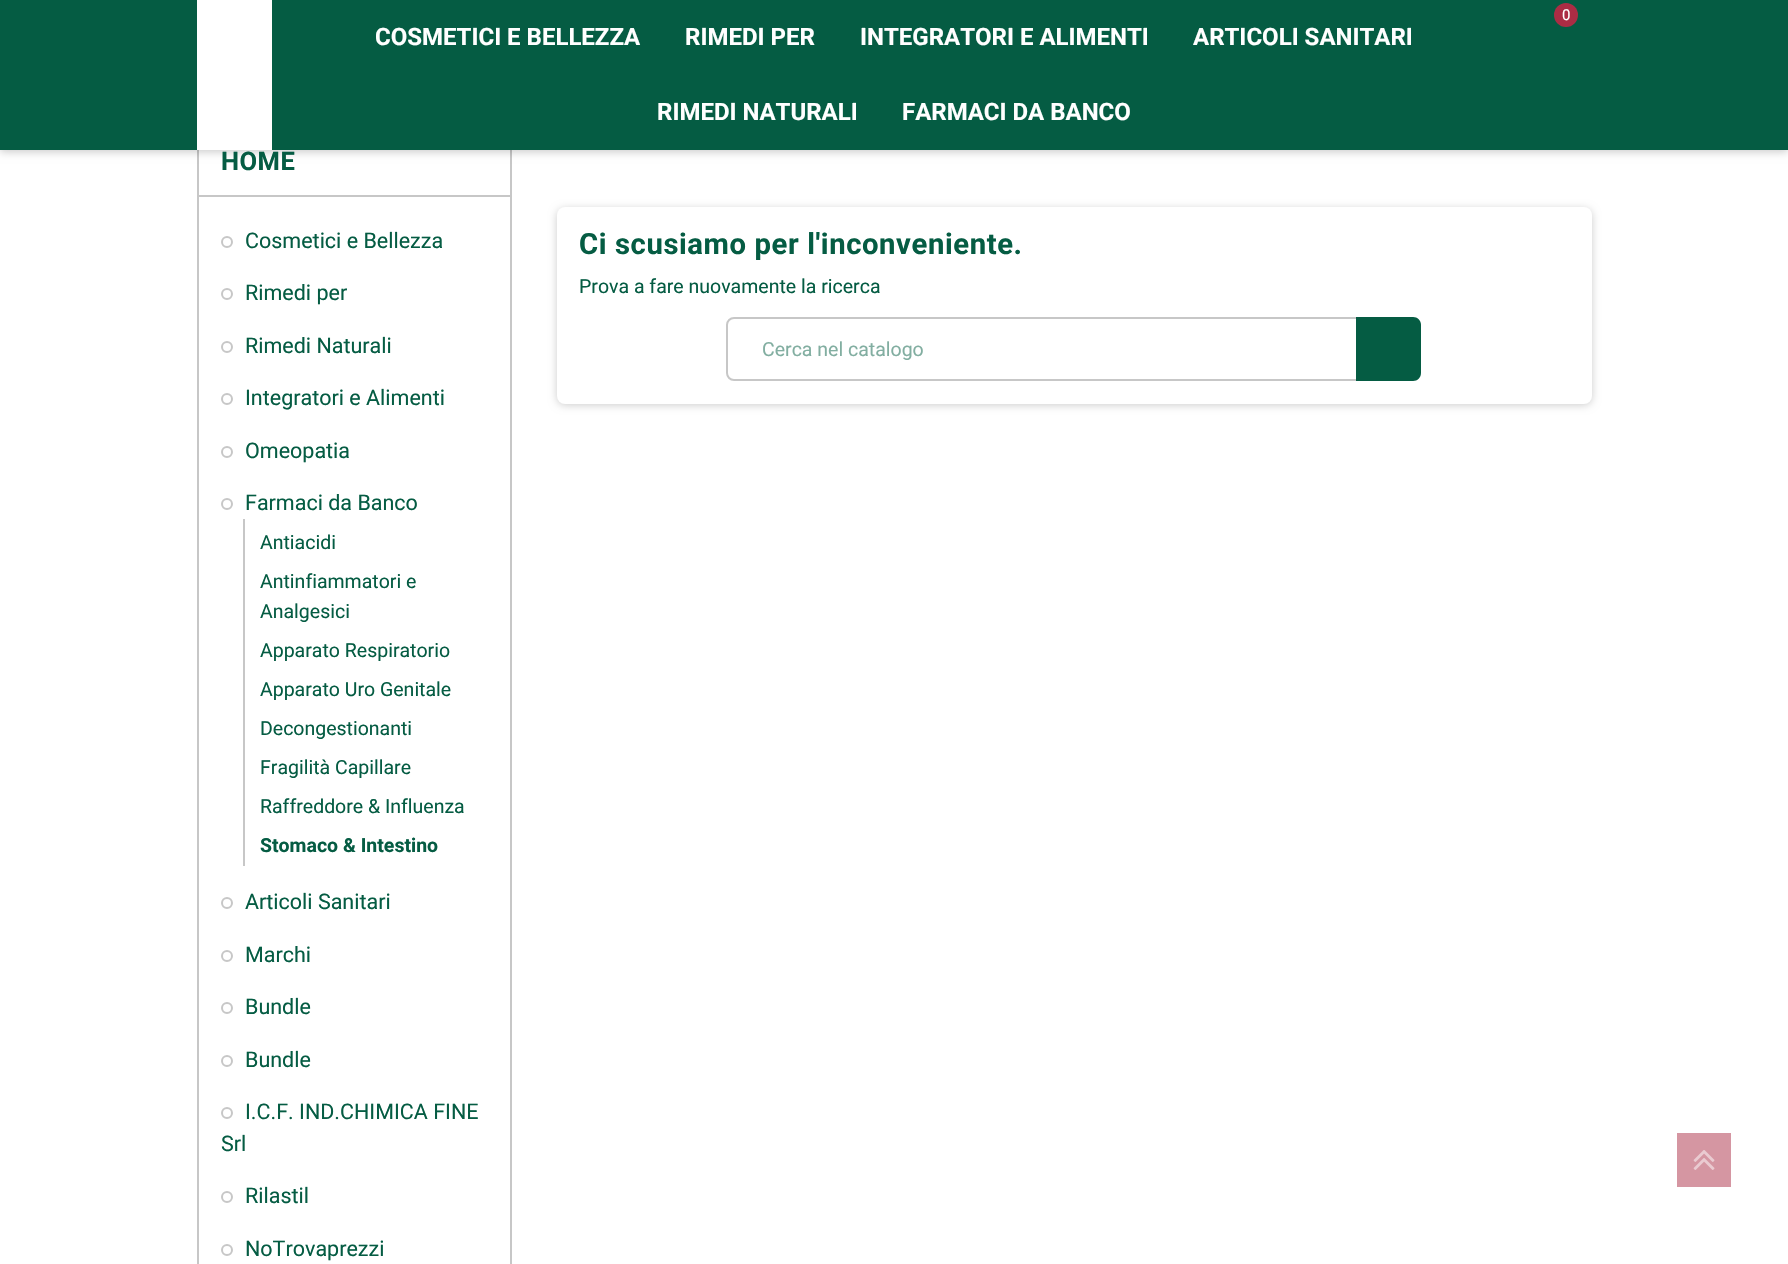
void draw(SkCanvas* c) {
SkPaint p;
p.setAntiAlias(true);
auto F=[&](const char* family, int weight, float size, bool italic = false){SkFontStyle style(weight, SkFontStyle::kNormal_Width,italic ? SkFontStyle::kItalic_Slant : SkFontStyle::kUpright_Slant);SkFont result(fontMgr->matchFamilyStyle(family, style), size);result.setSubpixel(true);return result;};
auto T=[&](const char* s, float x, float y, const SkFont& font){c->drawString(s, x, y, font, p);};
auto L=[&](const char* s, float x, float y, const SkFont& font, const SkPaint& ink, float letter, float word){std::vector<SkGlyphID> glyphs(font.countText(s, strlen(s), SkTextEncoding::kUTF8));std::vector<float> xs(glyphs.size());font.textToGlyphs(s, strlen(s), SkTextEncoding::kUTF8, glyphs);font.getXPos(glyphs, xs, x);float extra = 0;for (size_t i = 0; i < glyphs.size(); i++) {xs[i] += extra;extra += letter + word * (glyphs[i] == font.unicharToGlyph(' '));}c->drawTextBlob(SkTextBlob::MakeFromPosHGlyphs(glyphs, xs, y, font), 0, 0, ink);};
auto R=[&](float x, float y, float w, float h){c->drawRect(SkRect::MakeXYWH(x, y, w, h), p);};
auto Q=[&](float x, float y, float w, float h, float radius){c->drawRoundRect(SkRect::MakeXYWH(x, y, w, h), radius, radius, p);};
auto I=[&](const char* path, float x, float y, float w, float h){auto image = SkImages::DeferredFromEncodedData(SkData::MakeFromFileName(path));c->drawImageRect(image, SkRect::MakeXYWH(x, y, w, h), SkSamplingOptions());};
auto P=[&](const char* data, bool evenOdd = false){SkPath result = *SkParsePath::FromSVGString(data);if (evenOdd) result.setFillType(SkPathFillType::kEvenOdd);return result;};
c->clear(0xffffffff);
p.setStroke(true);
p.setStrokeWidth(2);
p.setColor(0xffc7c7c7);
c->drawRect(SkRect::MakeXYWH(198,126,313,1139),p);
p.setStroke(false);
p.setColor(0x33000000);
p.setMaskFilter(SkMaskFilter::MakeBlur(kNormal_SkBlurStyle, 4));
c->drawRect(SkRect::MakeXYWH(0,2,1788,150),p);
p.setMaskFilter(nullptr);
p.setColor(0xff055c43);
R(0,0,1788,150);
p.setColor(0xffffffff);
R(197,0,75,150);
p.setColor(0xffab2c44);
c->drawCircle(1566,15,12,p);
auto f1 = F("Roboto",400,15);
p.setColor(0xffffffff);
T("0",1562,20,f1);
auto f2 = F("Roboto",700,24);
T("COSMETICI E BELLEZZA",375,45,f2);
T("RIMEDI PER",685,45,f2);
T("INTEGRATORI E ALIMENTI",860,45,f2);
T("ARTICOLI SANITARI",1193,45,f2);
T("RIMEDI NATURALI",657,120,f2);
T("FARMACI DA BANCO",902,120,f2);
p.setColor(0xffc7c7c7);
R(198,195,312,2);
auto f3 = F("Roboto",700,25.5);
p.setColor(0xff055c43);
L("HOME",221,170,f3,p,.5,0);
p.setStroke(true);
p.setColor(0xffc7c7c7);
c->drawCircle(227,242,5,p);
auto f4 = F("Roboto",400,21.5);
p.setStroke(false);
p.setColor(0xff055c43);
T("Cosmetici e Bellezza",245,248,f4);
p.setStroke(true);
p.setColor(0xffc7c7c7);
c->drawCircle(227,294,5,p);
p.setStroke(false);
p.setColor(0xff055c43);
T("Rimedi per",245,300,f4);
p.setStroke(true);
p.setColor(0xffc7c7c7);
c->drawCircle(227,347,5,p);
p.setStroke(false);
p.setColor(0xff055c43);
T("Rimedi Naturali",245,353,f4);
p.setStroke(true);
p.setColor(0xffc7c7c7);
c->drawCircle(227,399,5,p);
p.setStroke(false);
p.setColor(0xff055c43);
T("Integratori e Alimenti",245,405,f4);
p.setStroke(true);
p.setColor(0xffc7c7c7);
c->drawCircle(227,452,5,p);
p.setStroke(false);
p.setColor(0xff055c43);
T("Omeopatia",245,458,f4);
p.setStroke(true);
p.setColor(0xffc7c7c7);
c->drawCircle(227,504,5,p);
p.setStroke(false);
p.setColor(0xff055c43);
T("Farmaci da Banco",245,510,f4);
p.setColor(0xffc7c7c7);
R(243,519,2,347);
auto f5 = F("Roboto",400,19.5);
p.setColor(0xff055c43);
T("Antiacidi",260,549,f5);
T("Antinfiammatori e",260,588,f5);
T("Analgesici",260,618,f5);
T("Apparato Respiratorio",260,657,f5);
T("Apparato Uro Genitale",260,696,f5);
T("Decongestionanti",260,735,f5);
T("Fragilità Capillare",260,774,f5);
T("Raffreddore & Influenza",260,813,f5);
auto f6 = F("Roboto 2",700,19.5);
T("Stomaco & Intestino",260,852,f6);
p.setStroke(true);
p.setColor(0xffc7c7c7);
c->drawCircle(227,903,5,p);
p.setStroke(false);
p.setColor(0xff055c43);
T("Articoli Sanitari",245,909,f4);
p.setStroke(true);
p.setColor(0xffc7c7c7);
c->drawCircle(227,956,5,p);
p.setStroke(false);
p.setColor(0xff055c43);
T("Marchi",245,962,f4);
p.setStroke(true);
p.setColor(0xffc7c7c7);
c->drawCircle(227,1008,5,p);
p.setStroke(false);
p.setColor(0xff055c43);
T("Bundle",245,1014,f4);
p.setStroke(true);
p.setColor(0xffc7c7c7);
c->drawCircle(227,1061,5,p);
p.setStroke(false);
p.setColor(0xff055c43);
T("Bundle",245,1067,f4);
p.setStroke(true);
p.setColor(0xffc7c7c7);
c->drawCircle(227,1113,5,p);
p.setStroke(false);
p.setColor(0xff055c43);
T("I.C.F. IND.CHIMICA FINE",245,1119,f4);
T("Srl",221,1151,f4);
p.setStroke(true);
p.setColor(0xffc7c7c7);
c->drawCircle(227,1197,5,p);
p.setStroke(false);
p.setColor(0xff055c43);
T("Rilastil",245,1203,f4);
p.setStroke(true);
p.setColor(0xffc7c7c7);
c->drawCircle(227,1250,5,p);
p.setStroke(false);
p.setColor(0xff055c43);
T("NoTrovaprezzi",245,1256,f4);
p.setColor(0x33000000);
p.setMaskFilter(SkMaskFilter::MakeBlur(kNormal_SkBlurStyle, 4));
c->drawRoundRect(SkRect::MakeXYWH(557,209,1035,196),8,8,p);
p.setMaskFilter(nullptr);
p.setColor(0xffffffff);
Q(557,207,1035,197,8);
auto f7 = F("Roboto",700,29.25);
p.setColor(0xff055c43);
L("Ci scusiamo per l'inconveniente.",579,254,f7,p,.6,0);
T("Prova a fare nuovamente la ricerca",579,293,f5);
p.setStroke(true);
p.setColor(0xffc7c7c7);
c->drawRoundRect(SkRect::MakeXYWH(727,318,691,62),7,7,p);
p.setStroke(false);
p.setColor(0xff82aea1);
T("Cerca nel catalogo",762,356,f5);
p.setColor(0xff055c43);
c->drawPath(P("M1356 317h57c4.5 0 8 3.5 8 8v48c0 4.5-3.5 8-8 8h-57z"),p);
p.setColor(0xffd596a2);
R(1677,1133,54,54);
I("1.png",1693,1150,22,20);
}
